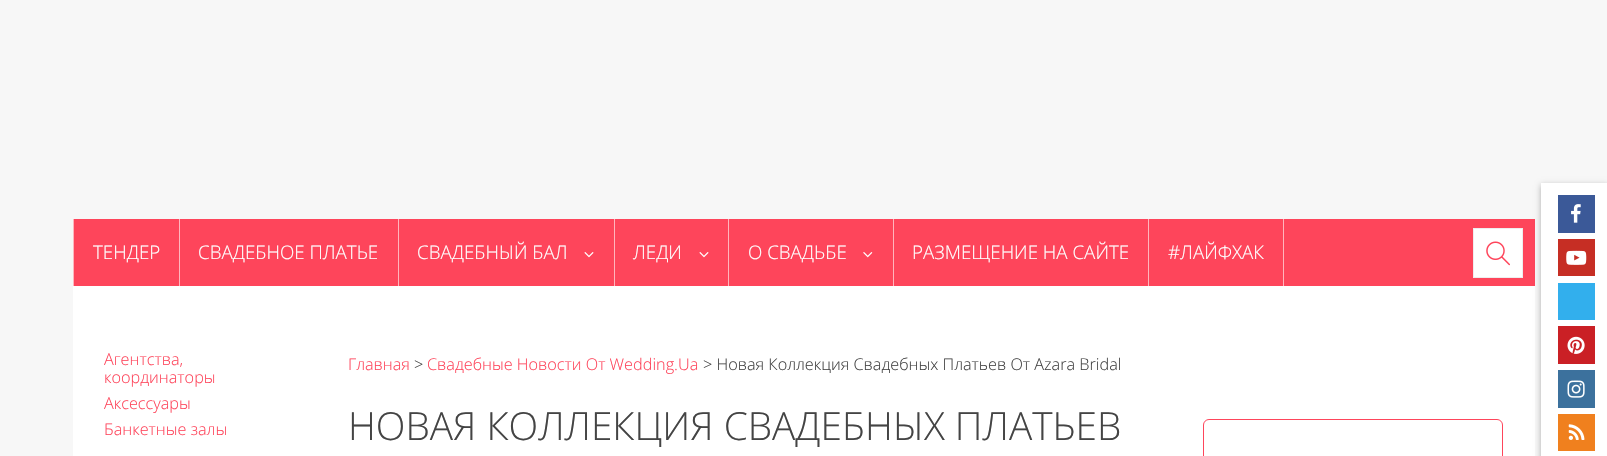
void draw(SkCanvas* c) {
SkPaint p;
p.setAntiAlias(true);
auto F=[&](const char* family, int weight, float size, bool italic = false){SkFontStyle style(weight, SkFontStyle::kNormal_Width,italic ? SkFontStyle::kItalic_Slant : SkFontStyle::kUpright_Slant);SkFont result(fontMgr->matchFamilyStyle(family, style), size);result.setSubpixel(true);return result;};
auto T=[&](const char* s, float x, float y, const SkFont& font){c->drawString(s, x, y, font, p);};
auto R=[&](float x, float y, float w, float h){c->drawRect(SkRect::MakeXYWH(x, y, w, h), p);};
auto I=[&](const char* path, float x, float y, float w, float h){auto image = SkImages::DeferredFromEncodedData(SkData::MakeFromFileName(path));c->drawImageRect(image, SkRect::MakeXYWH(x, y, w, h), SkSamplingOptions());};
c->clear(0xfff7f7f7);
p.setColor(0xfffe455b);
R(74,219,1461,67);
p.setColor(0xffffb5bd);
R(73,219,1,67);
auto f1 = F("Open Sans",300,18.75);
p.setColor(0xffffffff);
T("ТЕНДЕР",93,259,f1);
p.setColor(0xffffb5bd);
R(179,219,1,67);
p.setColor(0xffffffff);
T("СВАДЕБНОЕ ПЛАТЬЕ",198,259,f1);
p.setColor(0xffffb5bd);
R(398,219,1,67);
p.setColor(0xffffffff);
T("СВАДЕБНЫЙ БАЛ",417,259,f1);
I("1.png",584,252,10,6);
p.setColor(0xffffb5bd);
R(614,219,1,67);
p.setColor(0xffffffff);
T("ЛЕДИ",633,259,f1);
I("1.png",699,252,10,6);
p.setColor(0xffffb5bd);
R(728,219,1,67);
p.setColor(0xffffffff);
T("О СВАДЬБЕ",748,259,f1);
I("2.png",863,252,10,6);
p.setColor(0xffffb5bd);
R(893,219,1,67);
p.setColor(0xffffffff);
T("РАЗМЕЩЕНИЕ НА САЙТЕ",912,259,f1);
p.setColor(0xffffb5bd);
R(1283,219,1,67);
R(1148,219,1,67);
p.setColor(0xffffffff);
T("#ЛАЙФХАК",1168,259,f1);
c->drawRect(SkRect::MakeXYWH(1473.5,228.5,49,49),p);
p.setStroke(true);
p.setStrokeWidth(1);
p.setColor(0xffeeeeee);
c->drawRect(SkRect::MakeXYWH(1473.5,228.5,49,49),p);
I("3.png",1486,241,24,25);
p.setStroke(false);
p.setColor(0xffffffff);
R(73,286,1462,170);
p.setColor(0x4d000000);
p.setMaskFilter(SkMaskFilter::MakeBlur(kNormal_SkBlurStyle, 3));
c->drawRect(SkRect::MakeXYWH(1541,185,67,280),p);
p.setMaskFilter(nullptr);
p.setColor(0xffffffff);
R(1541,183,66,273);
p.setColor(0xff3b5998);
R(1558,195,37,38);
I("4.png",1571,204,10,19);
p.setColor(0xffc62e24);
R(1558,239,37,37);
I("5.png",1566,250,21,15);
p.setColor(0xff32afed);
R(1558,283,37,37);
p.setColor(0xffca2025);
R(1558,326,37,38);
I("6.png",1567,336,18,18);
p.setColor(0xff3c719d);
R(1558,370,37,38);
I("7.png",1567,380,18,18);
p.setColor(0xfff0801e);
R(1558,414,37,37);
I("8.png",1568,424,17,16);
auto f2 = F("Open Sans",300,16.25);
p.setColor(0xfffe455b);
T("Агентства,",104,365,f2);
T("координаторы",104,383,f2);
T("Аксессуары",104,409,f2);
T("Банкетные залы",104,435,f2);
T("Главная",348,370,f2);
p.setColor(0xff444444);
T(">",414,370,f2);
p.setColor(0xfffe455b);
T("Свадебные Новости От Wedding.Ua",427,370,f2);
p.setColor(0xff444444);
T("> Новая Коллекция Свадебных Платьев От Azara Bridal",703,370,f2);
auto f3 = F("Open Sans",300,38.75);
T("НОВАЯ КОЛЛЕКЦИЯ СВАДЕБНЫХ ПЛАТЬЕВ",348,440,f3);
p.setStroke(true);
p.setColor(0xfffe455b);
c->drawRoundRect(SkRect::MakeXYWH(1203.5,419.5,299,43),5.5,5.5,p);
}
